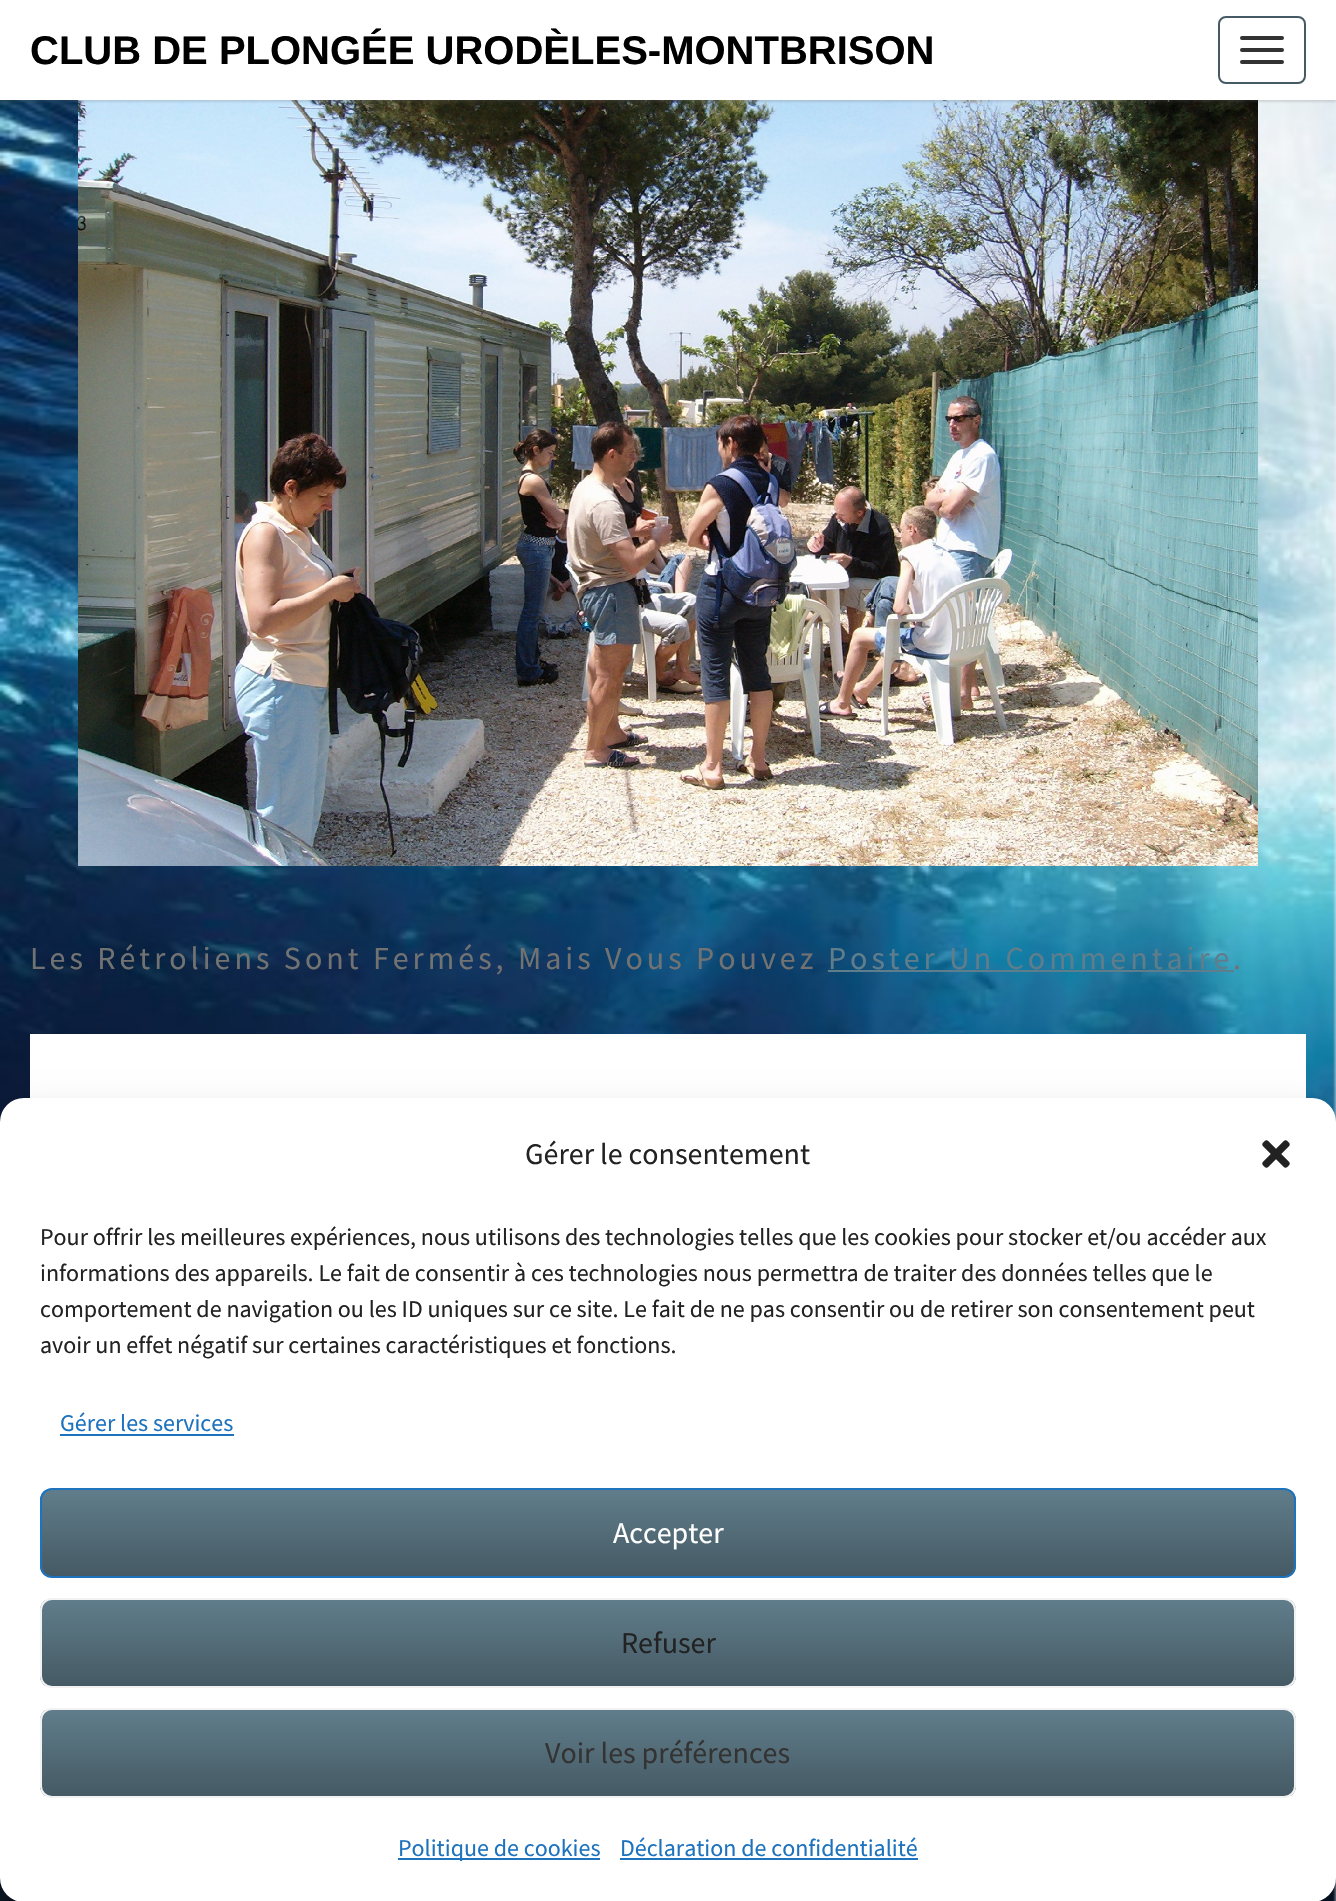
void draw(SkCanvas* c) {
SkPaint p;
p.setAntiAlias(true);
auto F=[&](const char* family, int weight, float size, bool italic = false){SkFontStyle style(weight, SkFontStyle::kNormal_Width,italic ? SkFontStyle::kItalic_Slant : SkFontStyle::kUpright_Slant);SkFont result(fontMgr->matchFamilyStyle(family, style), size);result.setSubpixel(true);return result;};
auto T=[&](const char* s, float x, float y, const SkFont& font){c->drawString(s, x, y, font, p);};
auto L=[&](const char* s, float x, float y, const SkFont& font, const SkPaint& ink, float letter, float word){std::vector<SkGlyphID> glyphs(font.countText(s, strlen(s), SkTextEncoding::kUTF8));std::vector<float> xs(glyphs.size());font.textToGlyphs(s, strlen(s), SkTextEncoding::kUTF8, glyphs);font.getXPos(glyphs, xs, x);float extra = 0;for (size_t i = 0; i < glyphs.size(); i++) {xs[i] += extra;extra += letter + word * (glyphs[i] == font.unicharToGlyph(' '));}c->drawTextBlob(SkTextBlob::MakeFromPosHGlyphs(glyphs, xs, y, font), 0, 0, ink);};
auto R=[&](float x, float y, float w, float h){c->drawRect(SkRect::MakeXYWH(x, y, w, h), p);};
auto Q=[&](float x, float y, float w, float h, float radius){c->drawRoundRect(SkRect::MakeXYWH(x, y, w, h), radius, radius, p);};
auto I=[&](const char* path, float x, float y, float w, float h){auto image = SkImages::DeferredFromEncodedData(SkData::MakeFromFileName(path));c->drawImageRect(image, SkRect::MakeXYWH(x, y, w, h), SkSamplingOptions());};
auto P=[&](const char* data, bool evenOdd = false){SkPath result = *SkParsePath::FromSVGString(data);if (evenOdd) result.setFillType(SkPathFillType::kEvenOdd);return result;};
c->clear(0xffeceff1);
I("1.png",0,100,1336,1801);
I("2.png",78,100,1180,766);
p.setColor(0x33646464);
p.setMaskFilter(SkMaskFilter::MakeBlur(kNormal_SkBlurStyle, 1));
c->drawRect(SkRect::MakeXYWH(0,2,1336,100),p);
p.setMaskFilter(nullptr);
p.setColor(0xffffffff);
R(0,0,1336,100);
auto f1 = F("Liberation Sans",700,40);
p.setColor(0xff000000);
T("CLUB DE PLONGÉE URODÈLES-MONTBRISON",30,64,f1);
p.setStroke(true);
p.setStrokeWidth(2);
p.setColor(0xff455a64);
c->drawRoundRect(SkRect::MakeXYWH(1219,17,86,66),7,7,p);
p.setStroke(false);
p.setColor(0xff333333);
Q(1240,36,44,4,2);
Q(1240,48,44,4,2);
Q(1240,60,44,4,2);
auto f2 = F("Source Sans Pro",400,32);
p.setColor(0xff727272);
L("Les Rétroliens Sont Fermés, Mais Vous Pouvez",30,969,f2,p,4,0);
p.setColor(0xff607d8b);
L("Poster Un Commentaire",828,969,f2,p,4,0);
R(828,970,406,2);
p.setColor(0xff727272);
L(".",1233,969,f2,p,4,0);
p.setColor(0xffffffff);
R(30,1034,1276,64);
p.setColor(0x3b000000);
p.setMaskFilter(SkMaskFilter::MakeBlur(kNormal_SkBlurStyle, 6));
c->drawRoundRect(SkRect::MakeXYWH(0,1110,1336,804),24,24,p);
p.setMaskFilter(nullptr);
p.setColor(0x30000000);
p.setMaskFilter(SkMaskFilter::MakeBlur(kNormal_SkBlurStyle, 20));
c->drawRoundRect(SkRect::MakeXYWH(0,1118,1336,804),24,24,p);
p.setMaskFilter(nullptr);
p.setColor(0xffffffff);
Q(0,1098,1336,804,24);
auto f3 = F("Source Sans Pro",400,30);
p.setColor(0xff222222);
T("Gérer le consentement",525,1164,f3);
I("3.png",1262,1140,28,28);
auto f4 = F("Source Sans Pro",400,24);
T("Pour offrir les meilleures expériences, nous utilisons des technologies telles que les cookies pour stocker et/ou accéder aux",40,1245,f4);
T("informations des appareils. Le fait de consentir à ces technologies nous permettra de traiter des données telles que le",40,1281,f4);
T("comportement de navigation ou les ID uniques sur ce site. Le fait de ne pas consentir ou de retirer son consentement peut",40,1317,f4);
T("avoir un effet négatif sur certaines caractéristiques et fonctions.",40,1353,f4);
p.setColor(0xff1e73be);
T("Gérer les services",60,1431,f4);
R(60,1434,174,2);
c->save();
c->clipPath(P("M52 1488h1232c6.5 0 12 5.5 12 12v66c0 6.5-5.5 12-12 12h-1232c-6.5 0-12-5.5-12-12v-66c0-6.5 5.5-12 12-12z"),true);
{
const SkColor colors[] = {0xff607d8b,0xff455a64};
const float stops[] = {0,1};
const SkPoint ends[] = {{668,1490}, {668,1576}};
p.setShader(SkGradientShader::MakeLinear(ends, colors, stops, 2, SkTileMode::kClamp));
p.setAlpha(255);
}
R(40,1490,1256,86);
c->restore();
p.setStroke(true);
p.setShader(nullptr);
p.setColor(0xff1e73be);
c->drawRoundRect(SkRect::MakeXYWH(41,1489,1254,88),11,11,p);
p.setStroke(false);
p.setColor(0xffffffff);
T("Accepter",613,1543,f3);
c->save();
c->clipPath(P("M52 1598h1232c6.5 0 12 5.5 12 12v66c0 6.5-5.5 12-12 12h-1232c-6.5 0-12-5.5-12-12v-66c0-6.5 5.5-12 12-12z"),true);
{
const SkColor colors[] = {0xff607d8b,0xff455a64};
const float stops[] = {0,1};
const SkPoint ends[] = {{668,1600}, {668,1686}};
p.setShader(SkGradientShader::MakeLinear(ends, colors, stops, 2, SkTileMode::kClamp));
p.setAlpha(255);
}
R(40,1600,1256,86);
c->restore();
p.setStroke(true);
p.setShader(nullptr);
p.setColor(0xfff2f2f2);
c->drawRoundRect(SkRect::MakeXYWH(41,1599,1254,88),11,11,p);
p.setStroke(false);
p.setColor(0xff222222);
T("Refuser",621,1653,f3);
c->save();
c->clipPath(P("M52 1708h1232c6.5 0 12 5.5 12 12v66c0 6.5-5.5 12-12 12h-1232c-6.5 0-12-5.5-12-12v-66c0-6.5 5.5-12 12-12z"),true);
{
const SkColor colors[] = {0xff607d8b,0xff455a64};
const float stops[] = {0,1};
const SkPoint ends[] = {{668,1710}, {668,1796}};
p.setShader(SkGradientShader::MakeLinear(ends, colors, stops, 2, SkTileMode::kClamp));
p.setAlpha(255);
}
R(40,1710,1256,86);
c->restore();
p.setStroke(true);
p.setShader(nullptr);
p.setColor(0xfff2f2f2);
c->drawRoundRect(SkRect::MakeXYWH(41,1709,1254,88),11,11,p);
p.setStroke(false);
p.setColor(0xff333333);
T("Voir les préférences",545,1763,f3);
p.setColor(0xff1e73be);
R(398,1858,202,2);
T("Politique de cookies",398,1856,f4);
T("Déclaration de confidentialité",620,1856,f4);
R(620,1858,298,2);
}
